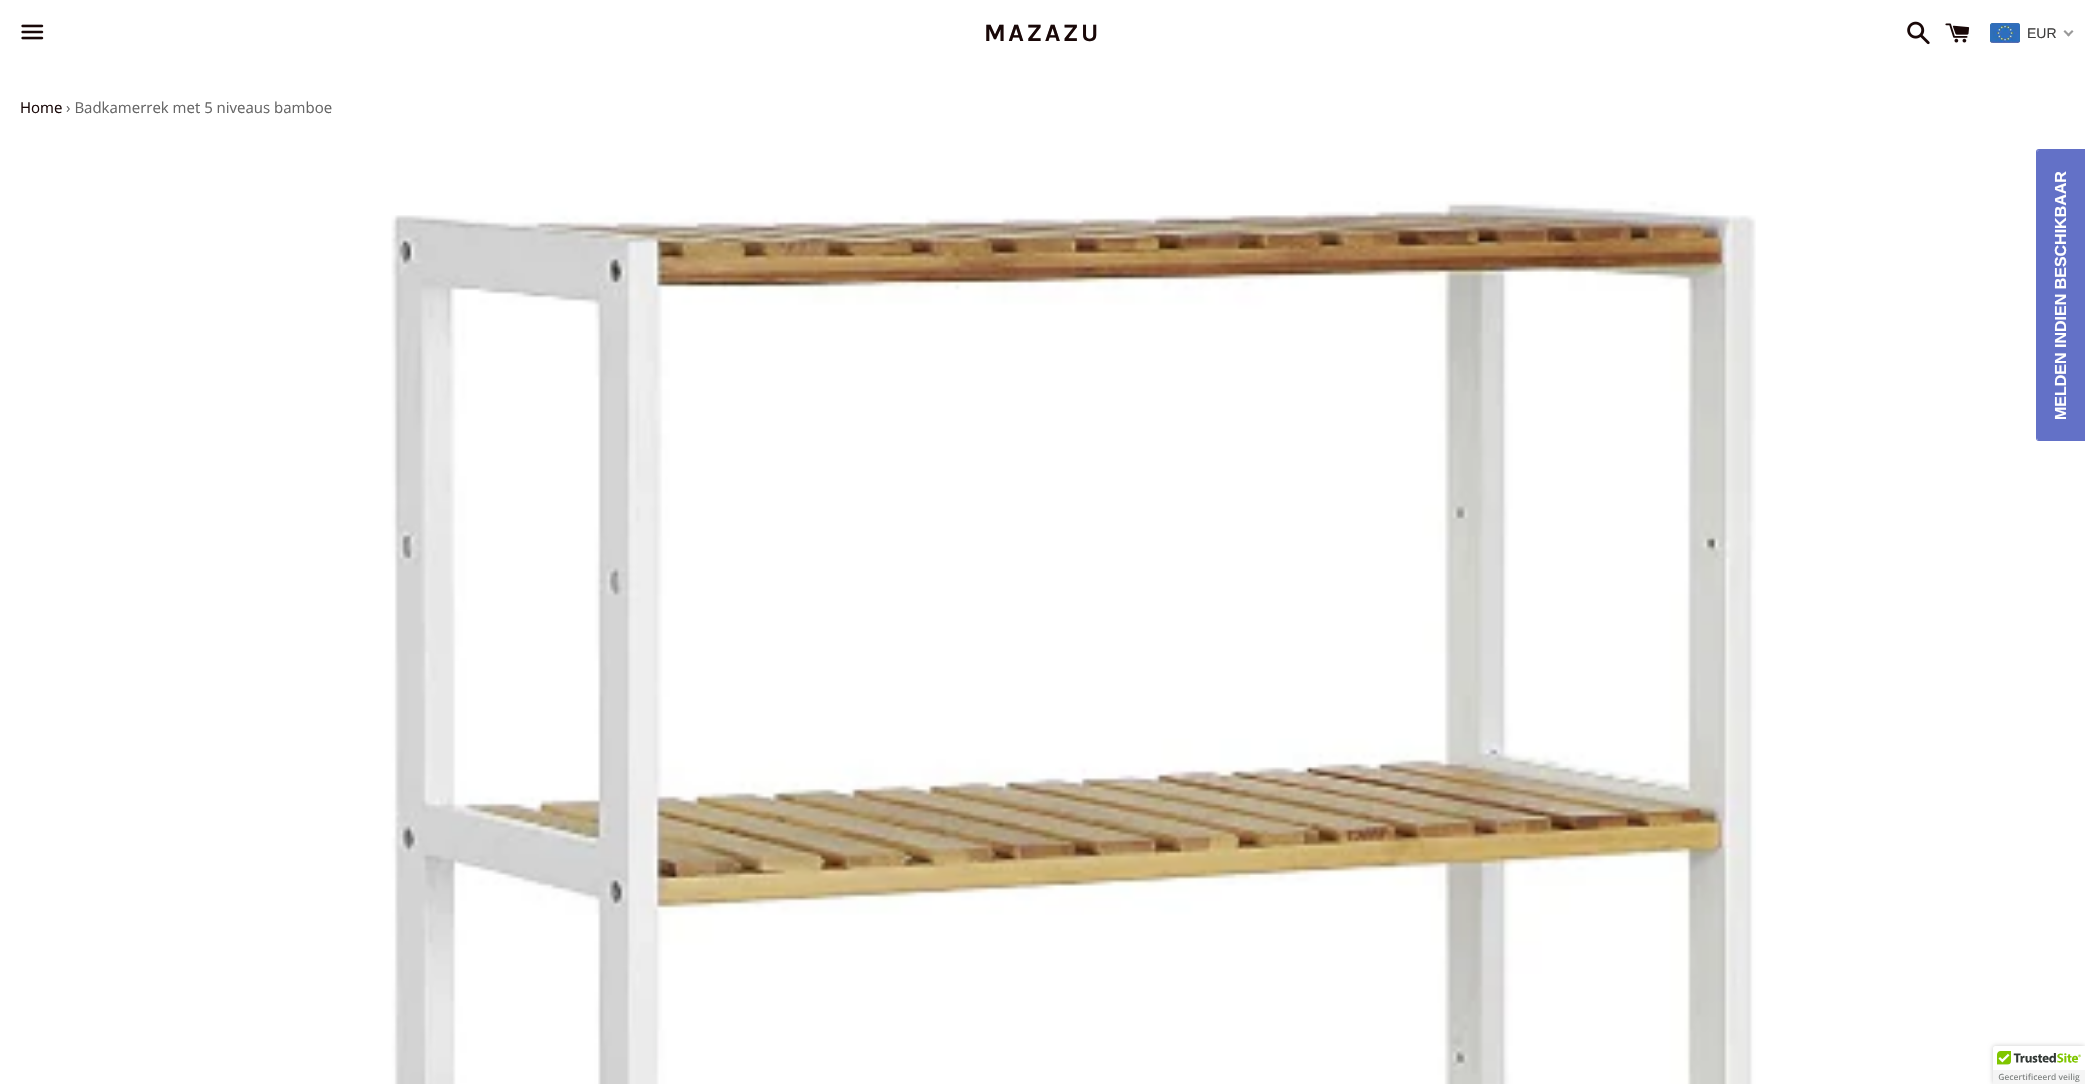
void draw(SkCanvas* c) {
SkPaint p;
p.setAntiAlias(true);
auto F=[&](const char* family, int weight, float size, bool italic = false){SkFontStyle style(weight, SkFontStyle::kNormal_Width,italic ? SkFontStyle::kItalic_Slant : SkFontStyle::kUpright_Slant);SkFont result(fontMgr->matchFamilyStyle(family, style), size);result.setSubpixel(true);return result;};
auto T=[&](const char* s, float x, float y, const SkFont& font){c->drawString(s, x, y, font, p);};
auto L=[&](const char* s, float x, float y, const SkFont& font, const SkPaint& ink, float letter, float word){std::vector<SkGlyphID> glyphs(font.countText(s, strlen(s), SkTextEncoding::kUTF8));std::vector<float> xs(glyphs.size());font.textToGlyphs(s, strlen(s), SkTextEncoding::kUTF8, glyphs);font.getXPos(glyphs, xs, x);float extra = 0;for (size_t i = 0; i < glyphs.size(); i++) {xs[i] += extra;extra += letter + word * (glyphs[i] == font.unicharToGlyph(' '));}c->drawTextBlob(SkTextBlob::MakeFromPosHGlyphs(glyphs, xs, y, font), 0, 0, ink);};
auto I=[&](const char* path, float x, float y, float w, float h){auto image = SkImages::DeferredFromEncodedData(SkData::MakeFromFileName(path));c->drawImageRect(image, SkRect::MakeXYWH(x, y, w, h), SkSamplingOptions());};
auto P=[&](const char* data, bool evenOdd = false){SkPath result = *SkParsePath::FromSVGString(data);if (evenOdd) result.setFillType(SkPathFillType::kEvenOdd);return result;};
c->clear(0xffffffff);
I("1.png",21,24,23,16);
auto f1 = F("Karla",700,25);
p.setColor(0xff190808);
L("MAZAZU",984,41,f1,p,2.5,0);
I("2.png",1907,21,23,24);
I("3.png",1945,23,25,20);
I("4.png",1990,23,30,20);
auto f2 = F("Liberation Sans",400,14);
p.setColor(0xff403f3f);
T("EUR",2027,38,f2);
p.setColor(0xff999999);
c->drawPath(P("M2072 30l1.5 1.5l-5 5l-1.5-1.5z"),p);
c->drawPath(P("M2065 30l5 5l-1.5 1.5l-5-5z"),p);
auto f3 = F("Open Sans",400,15);
p.setColor(0xff190808);
T("Home",20,113,f3);
p.setColor(0xff666666);
T("› Badkamerrek met 5 niveaus bamboe",66,113,f3);
I("5.png",391,201,1365,883);
p.setColor(0xff6371c7);
c->drawPath(P("M2037 438v-286c0-1 1-2 2-2h46v290h-46c-1 0-2 0-2-2z"),p);
c->drawPath(P("M2036 438v-286c0-2 1-3 3-3h46v292h-46c-2 0-3-1-3-3zm1 0v-286c0-1 1-2 2-2h46v290h-46c-1 0-2 0-2-2z",true),p);
auto f4 = F("Liberation Sans",700,16);
p.setColor(0xffffffff);
c->save();
c->rotate(-90,2066,420);
T("MELDEN INDIEN BESCHIKBAAR",2066,420,f4);
c->restore();
p.setColor(0x33000000);
p.setMaskFilter(SkMaskFilter::MakeBlur(kNormal_SkBlurStyle, 2.5));
c->drawRoundRect(SkRect::MakeXYWH(1993,1046,92,38),2,2,p);
p.setMaskFilter(nullptr);
p.setColor(0xffffffff);
c->drawPath(P("M1995 1046h90v38h-92v-36c0-1 1-2 2-2z"),p);
I("6.png",1993,1051,92,33);
}
